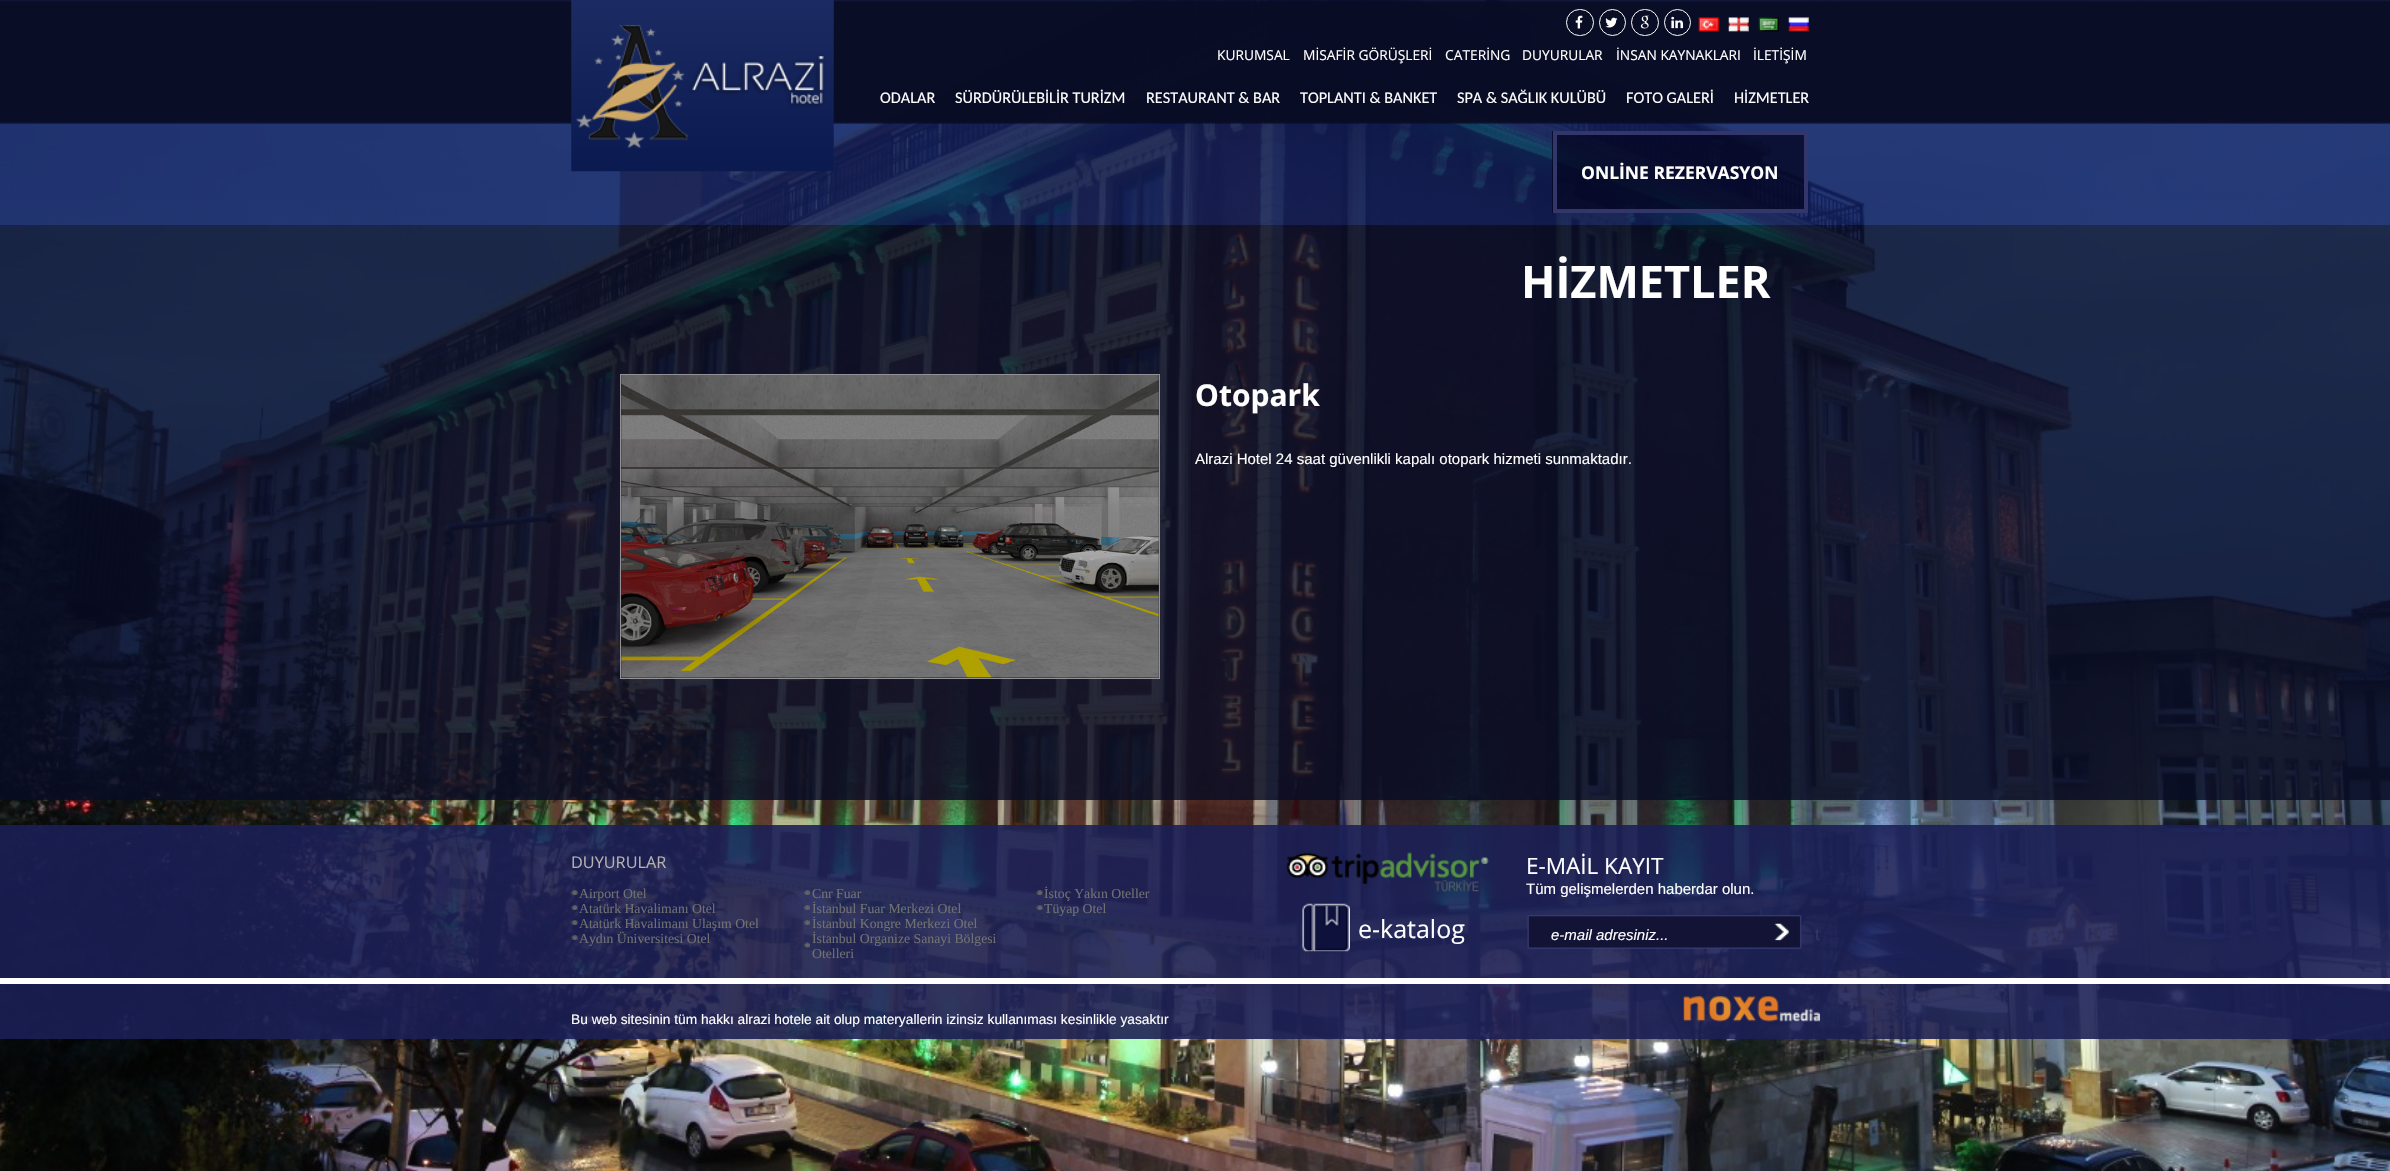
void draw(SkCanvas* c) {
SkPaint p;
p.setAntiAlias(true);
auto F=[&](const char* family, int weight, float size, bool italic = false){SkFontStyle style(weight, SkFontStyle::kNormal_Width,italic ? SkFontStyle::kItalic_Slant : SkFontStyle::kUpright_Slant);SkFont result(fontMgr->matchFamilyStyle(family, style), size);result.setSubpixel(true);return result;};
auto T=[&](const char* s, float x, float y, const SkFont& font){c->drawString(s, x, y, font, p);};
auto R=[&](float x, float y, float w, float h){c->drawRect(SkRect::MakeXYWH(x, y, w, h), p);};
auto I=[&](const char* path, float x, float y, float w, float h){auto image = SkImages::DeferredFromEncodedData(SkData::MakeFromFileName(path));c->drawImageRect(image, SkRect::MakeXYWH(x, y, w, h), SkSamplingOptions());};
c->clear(0xffffffff);
I("1.png",0,0,2390,1171);
I("2.png",0,0,2390,225);
I("3.png",571,0,263,172);
p.setStroke(true);
p.setStrokeWidth(1);
p.setColor(0xffffffff);
c->drawRoundRect(SkRect::MakeXYWH(1566.5,9.5,27,26),13,13,p);
I("4.png",1575,15,8,14);
c->drawCircle(1612.5,22.5,13,p);
I("5.png",1605,17,13,11);
c->drawRoundRect(SkRect::MakeXYWH(1631.5,9.5,27,26),13,13,p);
I("6.png",1640,15,9,14);
c->drawCircle(1677.5,22.5,13,p);
I("7.png",1671,16,13,13);
I("8.png",1698,17,111,15);
auto f1 = F("Open Sans",400,13.75);
p.setStroke(false);
p.setColor(0xfffffefe);
T("KURUMSAL",1217,60,f1);
T("MİSAFİR GÖRÜŞLERİ",1303,60,f1);
T("CATERİNG",1445,60,f1);
T("DUYURULAR",1522,60,f1);
T("İNSAN KAYNAKLARI",1616,60,f1);
T("İLETİŞİM",1753,60,f1);
p.setColor(0xc2020420);
R(1552,131,252,82);
p.setStroke(true);
p.setStrokeWidth(4);
p.setColor(0xff32366b);
c->drawRect(SkRect::MakeXYWH(1555,133,251,78),p);
auto f2 = F("Open Sans",700,17.5);
p.setStroke(false);
p.setColor(0xfffffefe);
T("ONLİNE REZERVASYON",1581,179,f2);
auto f3 = F("Carlito",400,16.25);
T("ODALAR",880,103,f3);
T("SÜRDÜRÜLEBİLİR TURİZM",955,103,f3);
T("RESTAURANT & BAR",1146,103,f3);
T("TOPLANTI & BANKET",1300,103,f3);
T("SPA & SAĞLIK KULÜBÜ",1457,103,f3);
T("FOTO GALERİ",1626,103,f3);
T("HİZMETLER",1734,103,f3);
p.setColor(0xcf070b24);
R(0,225,2390,575);
auto f4 = F("Open Sans",700,45);
p.setColor(0xfffffefe);
T("HİZMETLER",1521,298,f4);
p.setStroke(true);
p.setStrokeWidth(1);
p.setColor(0xff929197);
c->drawRect(SkRect::MakeXYWH(620.5,374.5,539,304),p);
I("9.png",621,375,538,303);
auto f5 = F("Open Sans",700,30);
p.setStroke(false);
p.setColor(0xfffffefe);
T("Otopark",1195,406,f5);
auto f6 = F("Liberation Sans",400,15);
T("Alrazi Hotel 24 saat güvenlikli kapalı otopark hizmeti sunmaktadır.",1195,464,f6);
p.setColor(0xe31a1e55);
R(0,825,2390,214);
auto f7 = F("Open Sans",400,16.25);
p.setColor(0xffb7b2b2);
T("DUYURULAR",571,868,f7);
I("10.png",571,890,7,5);
auto f8 = F("Liberation Serif",400,13.75);
p.setColor(0xff717171);
T("Airport Otel",579,898,f8);
I("11.png",571,905,7,5);
T("Atatürk Havalimanı Otel",579,913,f8);
I("12.png",571,920,7,5);
T("Atatürk Havalimanı Ulaşım Otel",579,928,f8);
I("13.png",571,935,7,5);
T("Aydın Üniversitesi Otel",579,943,f8);
I("14.png",803,890,7,5);
T("Cnr Fuar",812,898,f8);
I("15.png",803,905,7,5);
T("İstanbul Fuar Merkezi Otel",812,913,f8);
I("16.png",803,920,7,5);
T("İstanbul Kongre Merkezi Otel",812,928,f8);
I("17.png",803,942,7,6);
T("İstanbul Organize Sanayi Bölgesi",812,943,f8);
T("Otelleri",812,958,f8);
I("18.png",1036,890,7,5);
T("İstoç Yakın Oteller",1044,898,f8);
I("19.png",1036,905,7,5);
T("Tüyap Otel",1044,913,f8);
I("20.png",1286,852,203,40);
I("21.png",1302,903,48,49);
auto f9 = F("Open Sans",400,25);
p.setColor(0xfffffefe);
T("e-katalog",1358,938,f9);
I("22.png",1527,915,275,34);
auto f10 = F("Open Sans",400,22.5);
T("E-MAİL KAYIT",1526,874,f10);
T("Tüm gelişmelerden haberdar olun.",1526,894,f6);
auto f11 = F("Liberation Sans",400,15,true);
T("e-mail adresiniz...",1551,940,f11);
auto f12 = F("Liberation Sans",400,17);
p.setColor(0xff34365c);
T("t",1815,940,f12);
p.setColor(0xffffffff);
R(0,978,2390,6);
auto f13 = F("Liberation Sans",400,13.75);
p.setColor(0xfffffefe);
T("Bu web sitesinin tüm hakkı alrazi hotele ait olup materyallerin izinsiz kullanıması kesinlikle yasaktır",571,1024,f13);
I("23.png",1683,996,137,26);
}
